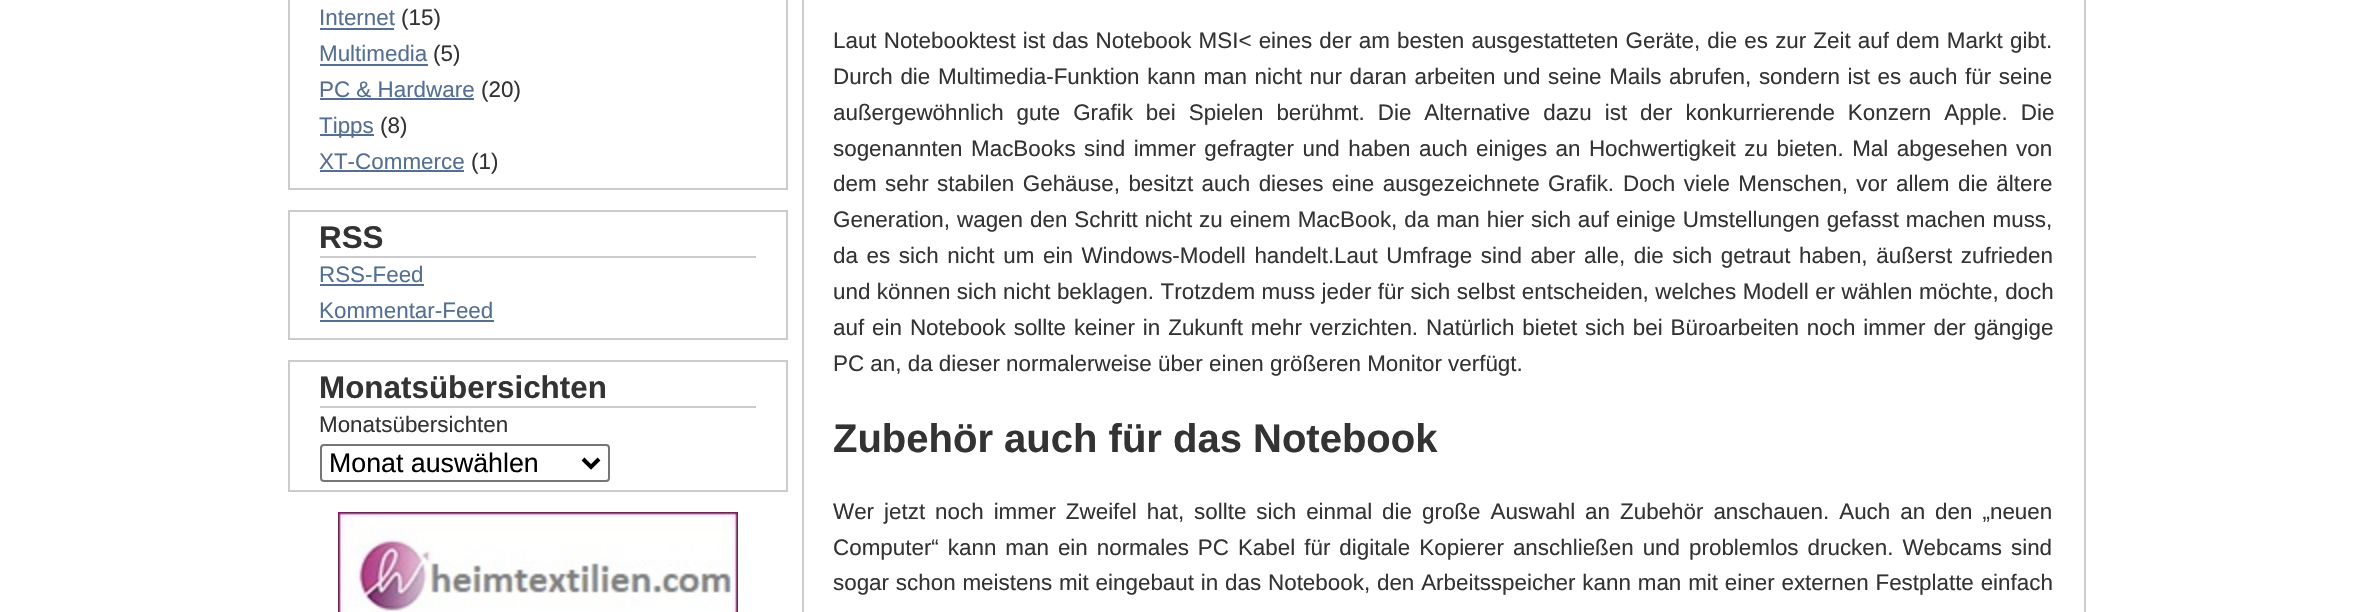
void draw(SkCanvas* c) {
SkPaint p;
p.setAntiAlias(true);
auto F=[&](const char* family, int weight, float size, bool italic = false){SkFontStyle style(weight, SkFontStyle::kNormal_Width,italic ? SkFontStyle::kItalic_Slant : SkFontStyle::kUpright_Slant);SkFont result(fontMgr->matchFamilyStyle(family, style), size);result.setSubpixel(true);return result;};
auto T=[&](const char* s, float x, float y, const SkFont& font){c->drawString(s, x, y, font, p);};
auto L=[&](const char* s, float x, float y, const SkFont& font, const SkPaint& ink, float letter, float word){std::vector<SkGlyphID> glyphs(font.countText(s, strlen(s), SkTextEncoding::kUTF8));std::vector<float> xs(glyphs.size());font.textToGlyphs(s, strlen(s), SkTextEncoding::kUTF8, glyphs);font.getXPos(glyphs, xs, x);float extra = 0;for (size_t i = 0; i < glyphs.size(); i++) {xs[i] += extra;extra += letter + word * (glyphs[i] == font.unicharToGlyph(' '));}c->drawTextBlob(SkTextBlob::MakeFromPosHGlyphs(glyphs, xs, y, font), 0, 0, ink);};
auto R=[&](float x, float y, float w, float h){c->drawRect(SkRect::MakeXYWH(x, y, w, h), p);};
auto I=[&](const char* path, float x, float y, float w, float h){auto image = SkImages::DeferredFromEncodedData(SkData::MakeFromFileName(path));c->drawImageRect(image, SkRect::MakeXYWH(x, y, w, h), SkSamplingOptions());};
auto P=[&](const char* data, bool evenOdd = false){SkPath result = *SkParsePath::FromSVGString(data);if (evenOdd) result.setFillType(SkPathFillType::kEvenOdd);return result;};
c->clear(0xffffffff);
p.setStroke(true);
p.setStrokeWidth(2);
p.setColor(0xffcccccc);
c->drawRect(SkRect::MakeXYWH(289,-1,498,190),p);
auto f1 = F("Liberation Sans",400,22.4);
p.setStroke(false);
p.setColor(0xff546f92);
T("Internet",319,25,f1);
R(320,28,74,2);
p.setColor(0xff333333);
T("(15)",401,25,f1);
p.setColor(0xff546f92);
T("Multimedia",319,61,f1);
R(320,64,108,2);
p.setColor(0xff333333);
T("(5)",433,61,f1);
p.setColor(0xff546f92);
T("PC & Hardware",319,97,f1);
R(320,98,154,2);
p.setColor(0xff333333);
T("(20)",481,97,f1);
p.setColor(0xff546f92);
R(320,134,54,2);
T("Tipps",319,133,f1);
p.setColor(0xff333333);
T("(8)",380,133,f1);
p.setColor(0xff546f92);
T("XT-Commerce",319,169,f1);
R(320,170,144,2);
p.setColor(0xff333333);
T("(1)",471,169,f1);
p.setStroke(true);
p.setColor(0xffcccccc);
c->drawRect(SkRect::MakeXYWH(289,211,498,128),p);
p.setStroke(false);
R(320,256,436,2);
auto f2 = F("Liberation Sans",700,31.4);
p.setColor(0xff333333);
T("RSS",319,248,f2);
p.setColor(0xff546f92);
T("RSS-Feed",319,282,f1);
R(320,284,104,2);
T("Kommentar-Feed",319,318,f1);
R(320,320,174,2);
p.setStroke(true);
p.setColor(0xffcccccc);
c->drawRect(SkRect::MakeXYWH(289,361,498,130),p);
p.setStroke(false);
R(320,406,436,2);
p.setColor(0xff333333);
T("Monatsübersichten",319,398,f2);
T("Monatsübersichten",319,432,f1);
p.setStroke(true);
p.setColor(0xff767676);
c->drawRoundRect(SkRect::MakeXYWH(321,445,288,36),3,3,p);
p.setStrokeWidth(4);
p.setColor(0xff000000);
c->drawPath(P("M583 459l8 8l8-8"),p);
auto f3 = F("Liberation Sans",400,26.75);
p.setStroke(false);
T("Monat auswählen",329,472,f3);
I("1.png",338,512,400,100);
p.setStroke(true);
p.setStrokeWidth(2);
p.setColor(0xffcccccc);
c->drawRect(SkRect::MakeXYWH(803,-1,1282,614),p);
p.setStroke(false);
p.setColor(0xff333333);
L("Laut Notebooktest ist das Notebook MSI< eines der am besten ausgestatteten Geräte, die es zur Zeit auf dem Markt gibt.",833,48,f1,p,0,.9);
L("Durch die Multimedia-Funktion kann man nicht nur daran arbeiten und seine Mails abrufen, sondern ist es auch für seine",833,84,f1,p,0,1.4);
L("außergewöhnlich gute Grafik bei Spielen berühmt. Die Alternative dazu ist der konkurrierende Konzern Apple. Die",833,120,f1,p,0,6.75);
L("sogenannten MacBooks sind immer gefragter und haben auch einiges an Hochwertigkeit zu bieten. Mal abgesehen von",833,156,f1,p,0,2.25);
L("dem sehr stabilen Gehäuse, besitzt auch dieses eine ausgezeichnete Grafik.",833,191,f1,p,0,2.25);
L("Doch viele Menschen, vor allem die ältere",1623,191,f1,p,0,2.25);
L("Generation, wagen den Schritt nicht zu einem MacBook, da man hier sich auf einige Umstellungen gefasst machen muss,",833,227,f1,p,0,.75);
L("da es sich nicht um ein Windows-Modell handelt.Laut Umfrage sind aber alle, die sich getraut haben, äußerst zufrieden",833,263,f1,p,0,2.4);
L("und können sich nicht beklagen. Trotzdem muss jeder für sich selbst entscheiden, welches Modell er wählen möchte, doch",833,299,f1,p,0,.25);
L("auf ein Notebook sollte keiner in Zukunft mehr verzichten. Natürlich bietet sich bei Büroarbeiten noch immer der gängige",833,335,f1,p,0,1.7);
T("PC an, da dieser normalerweise über einen größeren Monitor verfügt.",833,371,f1);
auto f4 = F("Liberation Sans",700,40);
T("Zubehör auch für das Notebook",833,452,f4);
L("Wer jetzt noch immer Zweifel hat, sollte sich einmal die große Auswahl an Zubehör anschauen. Auch an den „neuen",833,519,f1,p,0,3.75);
L("Computer“ kann man ein normales PC Kabel für digitale Kopierer anschließen und problemlos drucken. Webcams sind",833,555,f1,p,0,2.75);
L("sogar schon meistens mit eingebaut in das Notebook, den Arbeitsspeicher kann man mit einer externen Festplatte einfach",833,590,f1,p,0,.6);
}
